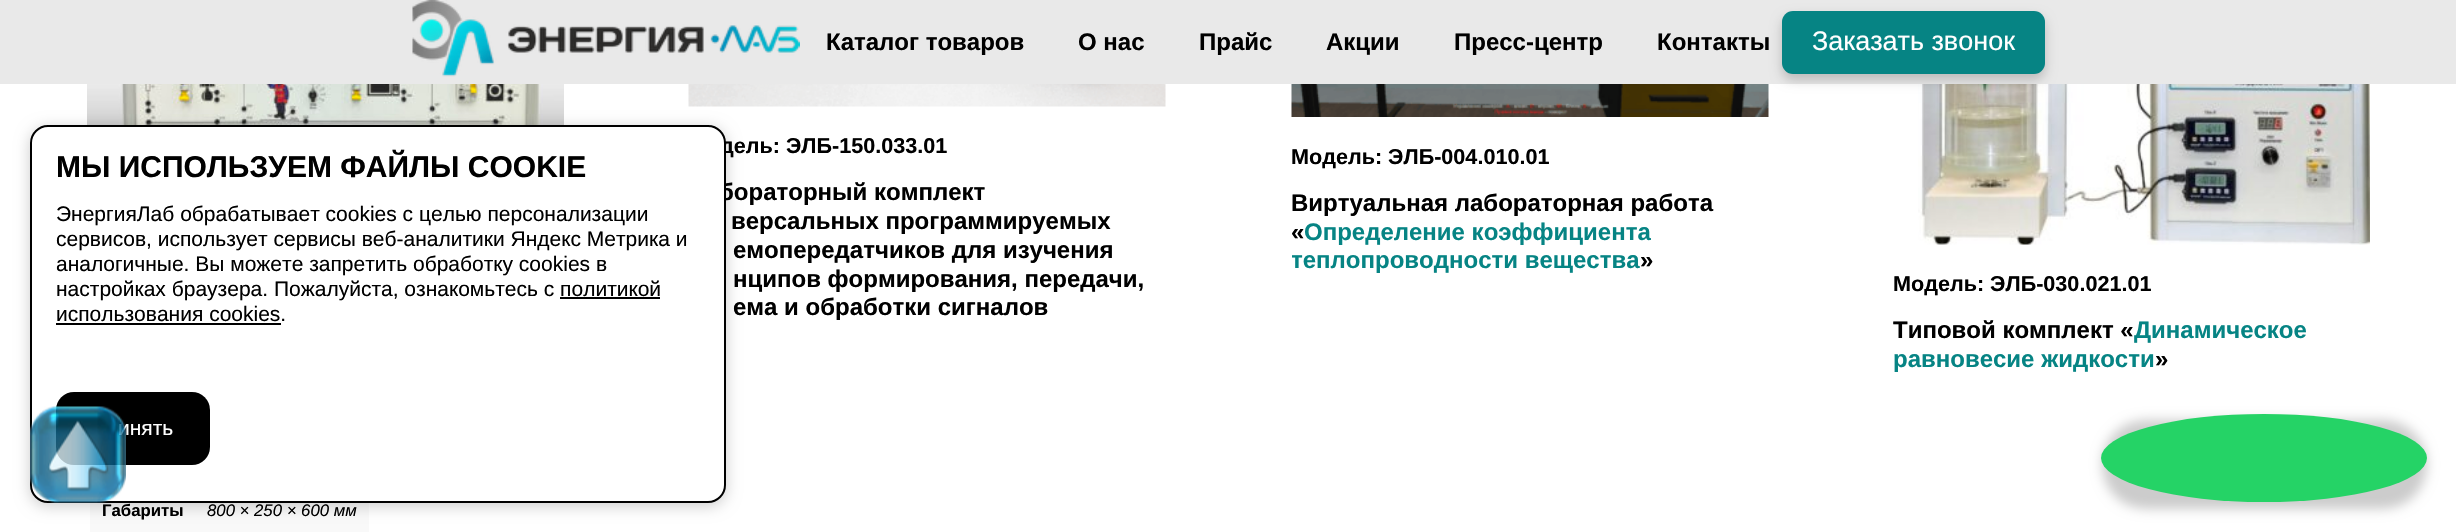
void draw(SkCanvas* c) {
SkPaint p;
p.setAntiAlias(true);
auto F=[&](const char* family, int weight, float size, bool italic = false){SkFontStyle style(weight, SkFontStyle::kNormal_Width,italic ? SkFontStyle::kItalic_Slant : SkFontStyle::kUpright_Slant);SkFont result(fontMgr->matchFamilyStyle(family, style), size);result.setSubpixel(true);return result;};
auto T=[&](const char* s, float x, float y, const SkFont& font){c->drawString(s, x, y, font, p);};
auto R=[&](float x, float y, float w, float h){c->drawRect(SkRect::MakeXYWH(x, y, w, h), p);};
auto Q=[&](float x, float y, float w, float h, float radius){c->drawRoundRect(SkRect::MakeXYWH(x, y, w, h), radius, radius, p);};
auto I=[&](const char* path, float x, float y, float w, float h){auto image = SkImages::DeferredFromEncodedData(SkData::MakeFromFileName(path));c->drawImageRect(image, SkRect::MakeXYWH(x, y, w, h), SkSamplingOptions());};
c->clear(0xffffffff);
p.setColor(0xffe9e9e9);
R(0,0,2456,84);
I("1.png",412,0,388,77);
auto f1 = F("Liberation Sans",700,24);
p.setColor(0xff000000);
T("Каталог товаров",826,50,f1);
T("О нас",1078,50,f1);
T("Прайс",1199,50,f1);
T("Акции",1326,50,f1);
T("Пресс-центр",1454,50,f1);
T("Контакты",1657,50,f1);
I("3.png",1291,84,478,33);
I("4.png",1918,84,452,161);
p.setColor(0x33000000);
p.setMaskFilter(SkMaskFilter::MakeBlur(kNormal_SkBlurStyle, 6));
c->drawRoundRect(SkRect::MakeXYWH(1782,17,263,63),11,11,p);
p.setMaskFilter(nullptr);
p.setColor(0xff068484);
Q(1782,11,263,63,11);
auto f2 = F("Liberation Sans",400,27);
p.setColor(0xffffffff);
T("Заказать звонок",1812,50,f2);
I("2.png",688,84,478,23);
auto f3 = F("Liberation Sans",700,21.6);
p.setColor(0xff000000);
T("дель: ЭЛБ-150.033.01",720,153,f3);
T("бораторный комплект",719,200,f1);
T("версальных программируемых",731,229,f1);
T("емопередатчиков для изучения",733,258,f1);
T("нципов формирования, передачи,",733,287,f1);
T("ема и обработки сигналов",733,315,f1);
T("Модель: ЭЛБ-004.010.01",1291,164,f3);
T("Виртуальная лабораторная работа",1291,211,f1);
T("«",1291,240,f1);
p.setColor(0xff068484);
T("Определение коэффициента",1304,240,f1);
c->save();
c->clipRect(SkRect::MakeXYWH(1292,189,477,86));
T("теплопроводности вещества",1291,268,f1);
c->restore();
p.setColor(0xff000000);
T("»",1640,268,f1);
T("Модель: ЭЛБ-030.021.01",1893,291,f3);
T("Типовой комплект «",1893,338,f1);
p.setColor(0xff068484);
T("Динамическое",2134,338,f1);
T("равновесие жидкости",1893,367,f1);
p.setColor(0xff000000);
T("»",2155,367,f1);
I("5.png",87,84,477,41);
p.setColor(0xfff9f9f9);
R(90,503,279,29);
auto f4 = F("Liberation Sans",700,16.75);
p.setColor(0xff000000);
T("Габариты",102,516,f4);
auto f5 = F("Liberation Sans",400,16.75,true);
T("800 × 250 × 600 мм",207,516,f5);
p.setColor(0x33000000);
p.setMaskFilter(SkMaskFilter::MakeBlur(kNormal_SkBlurStyle, 7.5));
c->drawRoundRect(SkRect::MakeXYWH(30,128,696,378),18,18,p);
p.setMaskFilter(nullptr);
p.setColor(0xffffffff);
c->drawRoundRect(SkRect::MakeXYWH(31,126,694,376),17,17,p);
p.setStroke(true);
p.setStrokeWidth(2);
p.setColor(0xff000000);
c->drawRoundRect(SkRect::MakeXYWH(31,126,694,376),17,17,p);
auto f6 = F("Liberation Sans",700,30);
p.setStroke(false);
T("МЫ ИСПОЛЬЗУЕМ ФАЙЛЫ COOKIE",56,177,f6);
auto f7 = F("Liberation Sans",400,21);
T("ЭнергияЛаб обрабатывает cookies с целью персонализации",56,221,f7);
T("сервисов, использует сервисы веб-аналитики Яндекс Метрика и",56,246,f7);
T("аналогичные. Вы можете запретить обработку сookies в",56,271,f7);
T("настройках браузера. Пожалуйста, ознакомьтесь с политикой",56,296,f7);
T("использования cookies.",56,321,f7);
R(560,297,100,2);
R(56,323,225,2);
Q(56,392,154,73,18);
p.setColor(0xffffffff);
T("инять",118,435,f7);
I("6.png",30,406,96,97);
p.setColor(0x33000000);
p.setMaskFilter(SkMaskFilter::MakeBlur(kNormal_SkBlurStyle, 6));
c->drawRoundRect(SkRect::MakeXYWH(2102,420,325,89),44.5,44.5,p);
p.setMaskFilter(nullptr);
p.setColor(0xff25d366);
c->drawOval(SkRect::MakeXYWH(2101,414,326,88),p);
}
